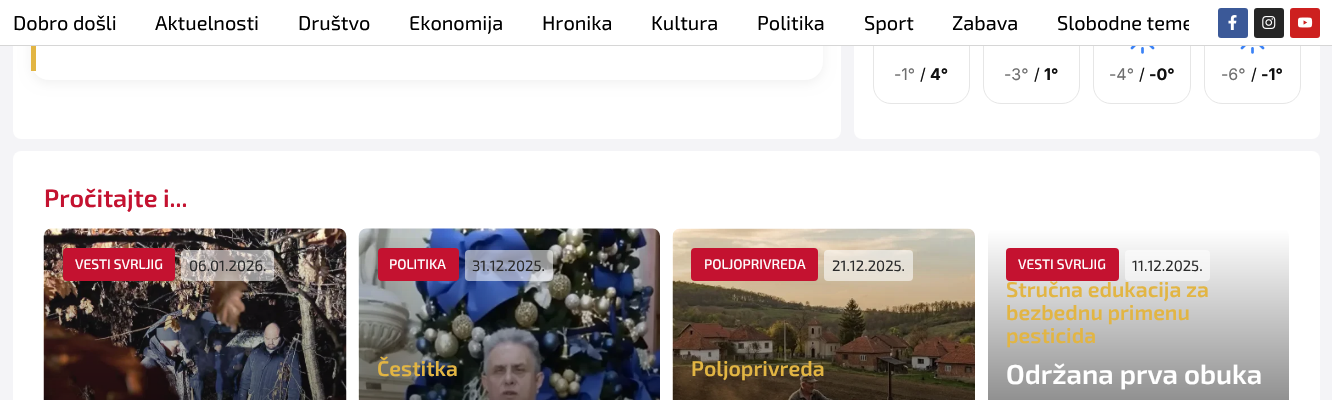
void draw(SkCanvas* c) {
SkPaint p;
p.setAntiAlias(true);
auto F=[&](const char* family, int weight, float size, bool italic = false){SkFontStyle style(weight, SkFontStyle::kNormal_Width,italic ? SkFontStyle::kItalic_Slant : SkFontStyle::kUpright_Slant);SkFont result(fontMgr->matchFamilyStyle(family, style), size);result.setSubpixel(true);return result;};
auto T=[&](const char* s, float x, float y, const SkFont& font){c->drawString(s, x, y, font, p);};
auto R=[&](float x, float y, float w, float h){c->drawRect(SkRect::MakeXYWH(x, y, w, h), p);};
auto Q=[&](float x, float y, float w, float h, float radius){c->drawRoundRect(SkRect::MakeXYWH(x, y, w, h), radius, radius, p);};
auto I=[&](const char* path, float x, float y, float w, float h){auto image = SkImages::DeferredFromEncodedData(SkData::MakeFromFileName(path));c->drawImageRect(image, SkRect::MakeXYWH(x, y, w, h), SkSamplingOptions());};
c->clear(0xfff4f4f7);
p.setColor(0xffffffff);
Q(13,-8,828,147,8);
p.setColor(0x0f000000);
p.setMaskFilter(SkMaskFilter::MakeBlur(kNormal_SkBlurStyle, 6));
c->drawRoundRect(SkRect::MakeXYWH(31,-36,792,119),18,18,p);
p.setMaskFilter(nullptr);
p.setColor(0xffffffff);
Q(31,-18,792,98,18);
Q(854,-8,466,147,8);
p.setStroke(true);
p.setStrokeWidth(1);
p.setColor(0xffe6e6e6);
c->drawRoundRect(SkRect::MakeXYWH(873.5,-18.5,96,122),17.5,17.5,p);
c->drawRoundRect(SkRect::MakeXYWH(983.5,-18.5,96,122),17.5,17.5,p);
c->drawRoundRect(SkRect::MakeXYWH(1093.5,-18.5,97,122),17.5,17.5,p);
c->drawRoundRect(SkRect::MakeXYWH(1204.5,-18.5,96,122),17.5,17.5,p);
p.setStroke(false);
p.setColor(0xffffffff);
R(0,0,1332,45);
p.setColor(0xffd6d6d6);
R(0,45,1332,1);
auto f1 = F("Exo 2",400,20);
p.setColor(0xff000000);
T("Dobro došli",13,30,f1);
T("Aktuelnosti",155,30,f1);
T("Društvo",298,30,f1);
T("Ekonomija",409,30,f1);
T("Hronika",542,30,f1);
T("Kultura",651,30,f1);
T("Politika",757,30,f1);
T("Sport",864,30,f1);
T("Zabava",952,30,f1);
c->save();
c->clipRect(SkRect::MakeXYWH(13,6,1176,33));
T("Slobodne teme",1057,30,f1);
c->restore();
p.setColor(0xff3b5998);
Q(1218,8,30,30,3);
I("1.png",1228,15,9,15);
p.setColor(0xff262626);
Q(1254,8,30,30,3);
I("2.png",1262,16,14,13);
p.setColor(0xffcd201f);
Q(1290,8,30,30,3);
I("3.png",1298,17,15,11);
p.setColor(0xffe2b543);
R(31,46,5,25);
auto f2 = F("Inter",400,16);
p.setColor(0xff6f6f6f);
T("-1°",894,80,f2);
p.setColor(0xff111111);
T("/",920,80,f2);
auto f3 = F("Inter",700,16);
T("4°",930,80,f3);
p.setColor(0xff6f6f6f);
T("-3°",1004,80,f2);
p.setColor(0xff111111);
T("/",1034,80,f2);
T("1°",1044,80,f3);
I("4.png",1130,46,25,8);
p.setColor(0xff6f6f6f);
T("-4°",1109,80,f2);
p.setColor(0xff111111);
T("/",1139,80,f2);
T("-0°",1149,80,f3);
I("4.png",1240,46,25,8);
p.setColor(0xff6f6f6f);
T("-6°",1221,80,f2);
p.setColor(0xff111111);
T("/",1251,80,f2);
T("-1°",1261,80,f3);
p.setColor(0xffffffff);
Q(13,151,1307,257,8);
auto f4 = F("Exo 2",600,25);
p.setColor(0xffc41230);
T("Pročitajte i...",44,207,f4);
I("5.png",43,228,304,172);
{
const SkColor colors[] = {0x00000000,0xc9000000};
const float stops[] = {0,1};
const SkPoint ends[] = {{195,229}, {195,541}};
p.setShader(SkGradientShader::MakeLinear(ends, colors, stops, 2, SkTileMode::kClamp));
p.setAlpha(255);
}
R(44,238,302,162);
p.setShader(nullptr);
p.setColor(0xffc41230);
Q(63,248,112,33,4);
auto f5 = F("Exo 2",500,13.75);
p.setColor(0xffffffff);
T("VESTI SVRLJIG",75,269,f5);
p.setColor(0x8fffffff);
Q(181,250,93,31,4);
auto f6 = F("Exo 2",400,15);
p.setColor(0xff2c2c2c);
T("06.01.2026.",189,271,f6);
I("6.png",358,228,302,172);
{
const SkColor colors[] = {0x00000000,0xc9000000};
const float stops[] = {0,1};
const SkPoint ends[] = {{509,229}, {509,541}};
p.setShader(SkGradientShader::MakeLinear(ends, colors, stops, 2, SkTileMode::kClamp));
p.setAlpha(255);
}
R(359,238,301,162);
p.setShader(nullptr);
p.setColor(0xffc41230);
Q(378,248,81,33,4);
p.setColor(0xffffffff);
T("POLITIKA",389,269,f5);
p.setColor(0x8fffffff);
Q(465,250,88,31,4);
p.setColor(0xff2c2c2c);
T("31.12.2025.",472,271,f6);
auto f7 = F("Exo 2",600,21.25);
p.setColor(0xffe2b543);
T("Čestitka",377,376,f7);
I("7.png",672,228,303,172);
{
const SkColor colors[] = {0x00000000,0xc9000000};
const float stops[] = {0,1};
const SkPoint ends[] = {{824,229}, {824,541}};
p.setShader(SkGradientShader::MakeLinear(ends, colors, stops, 2, SkTileMode::kClamp));
p.setAlpha(255);
}
R(673,238,302,162);
p.setShader(nullptr);
p.setColor(0xffc41230);
Q(691,248,127,33,4);
p.setColor(0xffffffff);
T("POLJOPRIVREDA",704,269,f5);
p.setColor(0x8fffffff);
Q(824,250,89,31,4);
p.setColor(0xff2c2c2c);
T("21.12.2025.",832,271,f6);
p.setColor(0xffe2b543);
T("Poljoprivreda",691,376,f7);
{
const SkColor colors[] = {0xffffffff,0xff363636};
const float stops[] = {0,1};
const SkPoint ends[] = {{1138,229}, {1138,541}};
p.setShader(SkGradientShader::MakeLinear(ends, colors, stops, 2, SkTileMode::kClamp));
p.setAlpha(255);
}
Q(988,229,301,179,8);
p.setShader(nullptr);
p.setColor(0xffc41230);
Q(1006,248,113,33,4);
p.setColor(0xffffffff);
T("VESTI SVRLJIG",1018,269,f5);
p.setColor(0x8fffffff);
Q(1125,250,85,31,4);
p.setColor(0xff2c2c2c);
T("11.12.2025.",1132,271,f6);
p.setColor(0xffe2b543);
T("Stručna edukacija za",1006,297,f7);
T("bezbednu primenu",1006,320,f7);
T("pesticida",1006,343,f7);
auto f8 = F("Exo 2",600,27.5);
p.setColor(0xffffffff);
T("Održana prva obuka",1006,384,f8);
}
